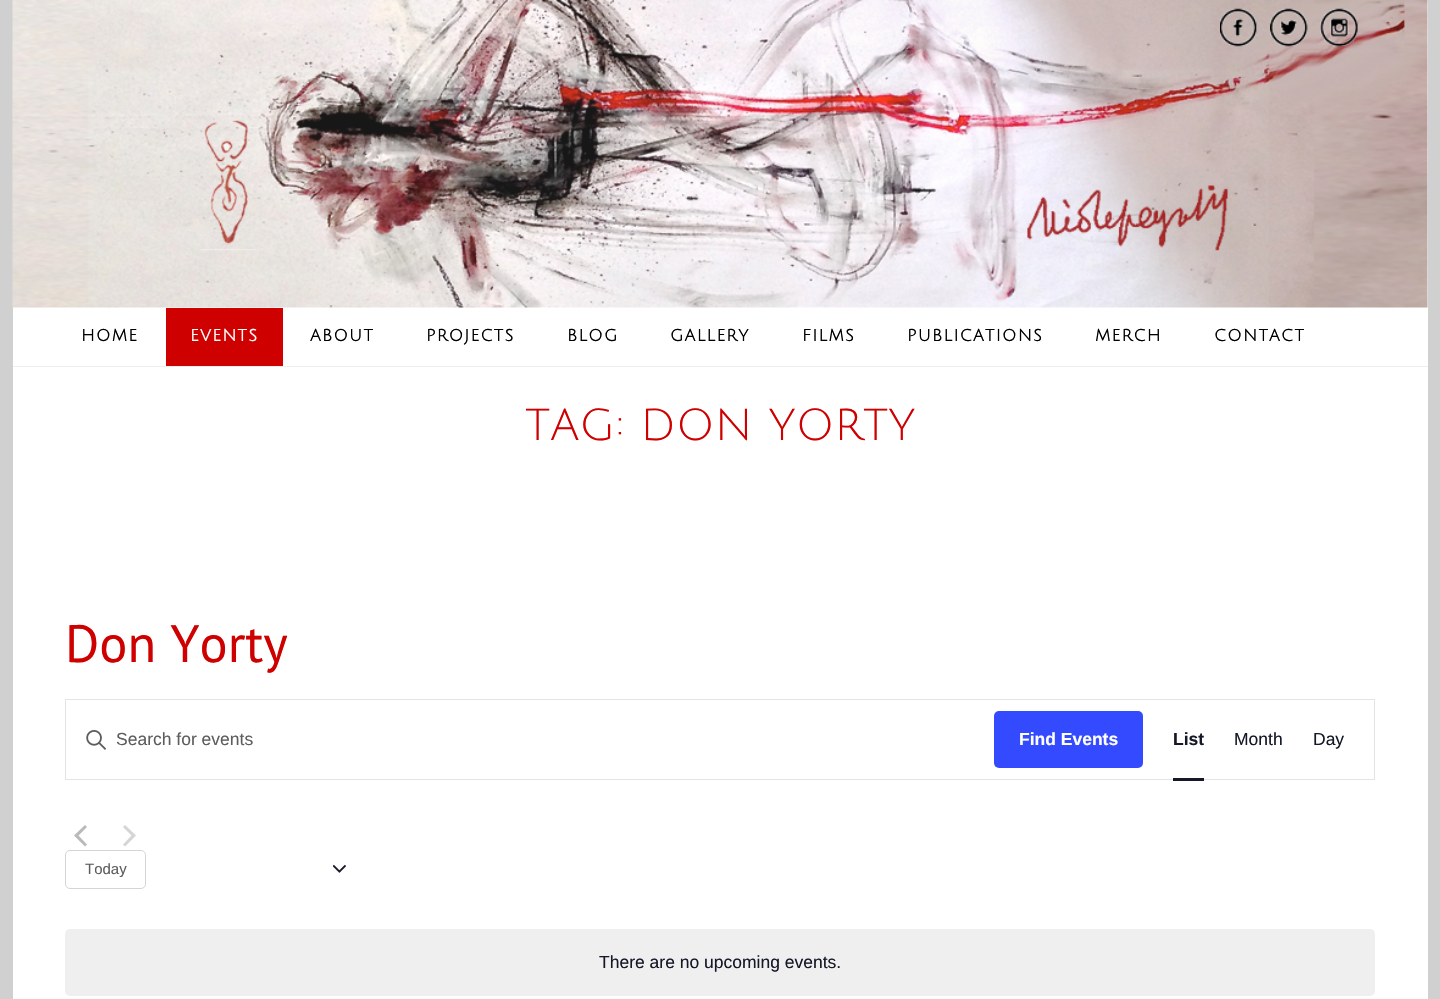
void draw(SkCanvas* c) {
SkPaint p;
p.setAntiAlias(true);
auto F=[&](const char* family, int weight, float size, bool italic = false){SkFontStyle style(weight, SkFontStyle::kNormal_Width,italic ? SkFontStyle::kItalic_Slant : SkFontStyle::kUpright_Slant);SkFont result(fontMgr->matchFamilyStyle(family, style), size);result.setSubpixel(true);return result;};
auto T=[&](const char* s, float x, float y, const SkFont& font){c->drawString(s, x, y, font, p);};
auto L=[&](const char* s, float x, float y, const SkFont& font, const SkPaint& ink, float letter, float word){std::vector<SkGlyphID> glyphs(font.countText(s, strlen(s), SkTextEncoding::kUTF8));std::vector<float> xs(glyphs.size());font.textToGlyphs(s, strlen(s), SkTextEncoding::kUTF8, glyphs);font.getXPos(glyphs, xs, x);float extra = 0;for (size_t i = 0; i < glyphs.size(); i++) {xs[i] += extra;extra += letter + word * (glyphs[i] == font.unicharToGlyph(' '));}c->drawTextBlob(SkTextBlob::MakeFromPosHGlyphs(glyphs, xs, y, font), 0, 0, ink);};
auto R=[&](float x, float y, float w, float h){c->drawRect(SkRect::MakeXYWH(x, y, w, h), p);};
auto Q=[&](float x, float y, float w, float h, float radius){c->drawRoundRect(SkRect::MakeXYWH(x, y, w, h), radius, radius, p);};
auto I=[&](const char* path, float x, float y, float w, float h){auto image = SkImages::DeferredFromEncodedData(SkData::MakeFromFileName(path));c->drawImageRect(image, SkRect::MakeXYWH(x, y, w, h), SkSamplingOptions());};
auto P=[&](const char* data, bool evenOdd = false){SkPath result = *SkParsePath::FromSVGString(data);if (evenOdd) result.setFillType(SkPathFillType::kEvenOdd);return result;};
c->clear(0xffd1d0d0);
p.setColor(0xffffffff);
R(13,0,1415,999);
I("1.png",12,0,1416,308);
I("2.png",1220,8,37,39);
I("3.png",1270,8,38,39);
I("4.png",1320,8,38,39);
p.setColor(0xffeeeeee);
R(13,366,1415,1);
auto f1 = F("Julius Sans One",700,16.25);
p.setColor(0xff000000);
L("HOME",81,341,f1,p,1.25,0);
p.setColor(0xffce0000);
R(166,308,117,58);
p.setColor(0xffffffff);
L("EVENTS",190,341,f1,p,1.25,0);
p.setColor(0xff000000);
L("ABOUT",310,341,f1,p,1.25,0);
L("PROJECTS",426,341,f1,p,1.25,0);
L("BLOG",567,341,f1,p,1.25,0);
L("GALLERY",670,341,f1,p,1.25,0);
L("FILMS",802,341,f1,p,1.25,0);
L("PUBLICATIONS",907,341,f1,p,1.25,0);
L("MERCH",1095,341,f1,p,1.25,0);
L("CONTACT",1214,341,f1,p,1.25,0);
auto f2 = F("Julius Sans One",400,43.75);
p.setColor(0xffce0000);
T("TAG: DON YORTY",525,440,f2);
auto f3 = F("PT Sans",400,52.5);
T("Don Yorty",65,662,f3);
p.setStroke(true);
p.setStrokeWidth(1);
p.setColor(0xffe4e4e4);
c->drawRect(SkRect::MakeXYWH(65.5,699.5,1309,80),p);
I("5.png",86,730,20,20);
auto f4 = F("Liberation Sans",400,17.5);
p.setStroke(false);
p.setColor(0xff5d5d5d);
T("Search for events",116,745,f4);
p.setColor(0xff334aff);
Q(994,711,149,57,5);
auto f5 = F("Liberation Sans",700,17.5);
p.setColor(0xffffffff);
T("Find Events",1019,745,f5);
p.setColor(0xff141827);
T("List",1173,745,f5);
R(1173,778,31,3);
T("Month",1234,745,f4);
T("Day",1313,745,f4);
p.setColor(0xffbababa);
c->drawPath(P("M87 844.5l-2 2l-11-11l11-10.5l2 2l-8.5 8.5z"),p);
p.setColor(0xffd5d5d5);
c->drawPath(P("M123 827l2-2l11 10.5l-11 11l-2-2l8.5-9z"),p);
p.setStroke(true);
c->drawRoundRect(SkRect::MakeXYWH(65.5,850.5,80,38),4.5,4.5,p);
auto f6 = F("Liberation Sans",400,15);
p.setStroke(false);
p.setColor(0xff5d5d5d);
T("Today",85,874,f6);
I("6.png",333,864,13,9);
p.setColor(0xffefeff0);
Q(65,929,1310,67,5);
p.setColor(0xff141827);
T("There are no upcoming events.",599,968,f4);
}
